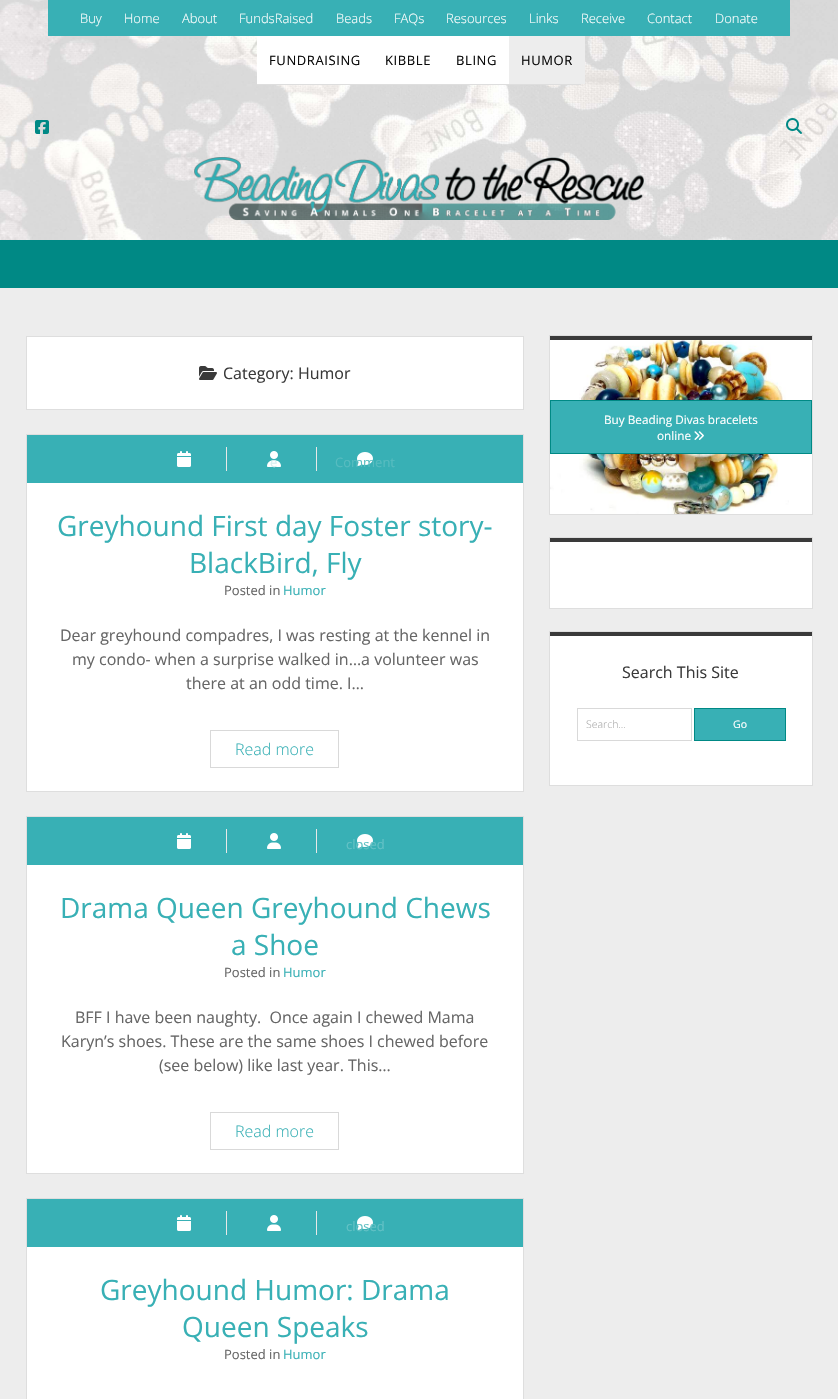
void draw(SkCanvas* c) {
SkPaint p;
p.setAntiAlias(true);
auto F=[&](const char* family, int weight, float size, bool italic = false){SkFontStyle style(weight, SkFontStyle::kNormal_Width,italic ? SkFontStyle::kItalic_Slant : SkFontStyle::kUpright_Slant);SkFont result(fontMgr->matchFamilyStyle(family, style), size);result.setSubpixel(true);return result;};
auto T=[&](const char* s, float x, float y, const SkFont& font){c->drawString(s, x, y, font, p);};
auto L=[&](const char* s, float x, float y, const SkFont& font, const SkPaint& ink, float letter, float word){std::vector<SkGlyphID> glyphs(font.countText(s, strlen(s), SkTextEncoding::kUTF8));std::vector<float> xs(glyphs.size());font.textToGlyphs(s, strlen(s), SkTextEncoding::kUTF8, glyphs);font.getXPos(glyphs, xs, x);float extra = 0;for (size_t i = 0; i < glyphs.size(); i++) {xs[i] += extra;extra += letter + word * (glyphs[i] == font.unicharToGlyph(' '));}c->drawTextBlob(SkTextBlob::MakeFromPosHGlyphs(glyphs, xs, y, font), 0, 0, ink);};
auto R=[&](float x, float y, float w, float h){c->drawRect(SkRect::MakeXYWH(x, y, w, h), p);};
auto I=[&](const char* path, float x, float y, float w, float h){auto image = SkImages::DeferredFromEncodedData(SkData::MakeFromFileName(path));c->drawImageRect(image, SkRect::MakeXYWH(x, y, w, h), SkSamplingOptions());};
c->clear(0xffededed);
p.setColor(0xff008985);
R(0,240,838,48);
I("1.png",0,0,838,240);
p.setColor(0xff38b0b5);
R(48,0,742,36);
auto f1 = F("Open Sans",300,13);
p.setColor(0xffffffff);
T("Buy",80,23,f1);
T("Home",124,23,f1);
T("About",182,23,f1);
T("FundsRaised",239,23,f1);
T("Beads",336,23,f1);
T("FAQs",394,23,f1);
T("Resources",446,23,f1);
T("Links",529,23,f1);
T("Receive",581,23,f1);
T("Contact",647,23,f1);
T("Donate",715,23,f1);
R(257,36,252,48);
p.setColor(0xffdedede);
R(257,84,324,1);
auto f2 = F("Open Sans",400,13);
p.setColor(0xff0a0a0a);
L("FUNDRAISING",269,65,f2,p,.6,0);
L("KIBBLE",385,65,f2,p,.6,0);
L("BLING",456,65,f2,p,.6,0);
p.setColor(0xffededed);
R(509,36,76,48);
p.setColor(0xff0a0a0a);
L("HUMOR",521,65,f2,p,.6,0);
I("2.png",35,120,14,14);
I("3.png",786,118,16,16);
I("4.png",194,157,450,63);
p.setColor(0xffffffff);
c->drawRect(SkRect::MakeXYWH(26.5,336.5,497,73),p);
p.setStroke(true);
p.setStrokeWidth(1);
p.setColor(0xffdedede);
c->drawRect(SkRect::MakeXYWH(26.5,336.5,497,73),p);
I("5.png",199,366,18,14);
auto f3 = F("Open Sans",400,16);
p.setStroke(false);
p.setColor(0xff3a3a3a);
T("Category: Humor",223,379,f3);
p.setColor(0xffffffff);
R(27,483,496,308);
p.setStroke(true);
p.setColor(0xffdedede);
c->drawRect(SkRect::MakeXYWH(26.5,434.5,497,357),p);
p.setStroke(false);
p.setColor(0xff38b0b5);
R(27,435,496,48);
I("6.png",177,451,14,16);
p.setColor(0xffe8e8e8);
R(226,447,1,24);
I("7.png",267,451,14,16);
p.setColor(0xffd8f0f1);
T("e",270,467,f2);
p.setColor(0xffe8e8e8);
R(316,447,1,24);
I("8.png",357,452,16,14);
p.setColor(0xff57bcc0);
T("Comment",335,467,f2);
auto f4 = F("Open Sans",400,28);
p.setColor(0xff38b0b5);
T("Greyhound First day Foster story-",57,536,f4);
T("BlackBird, Fly",189,573,f4);
p.setColor(0xff666666);
T("Posted in",224,595,f2);
p.setColor(0xff38b0b5);
T("Humor",283,595,f2);
p.setColor(0xff666666);
T("Dear greyhound compadres, I was resting at the kennel in",60,641,f3);
T("my condo- when a surprise walked in…a volunteer was",72,665,f3);
T("there at an odd time. I…",186,689,f3);
p.setStroke(true);
p.setColor(0xffd9d9d9);
c->drawRect(SkRect::MakeXYWH(210.5,730.5,128,37),p);
auto f5 = F("Open Sans",300,16);
p.setStroke(false);
p.setColor(0xff38b0b5);
T("Read more",235,755,f5);
p.setColor(0xffffffff);
R(27,865,496,308);
p.setStroke(true);
p.setColor(0xffdedede);
c->drawRect(SkRect::MakeXYWH(26.5,816.5,497,357),p);
p.setStroke(false);
p.setColor(0xff38b0b5);
R(27,817,496,48);
I("6.png",177,833,14,16);
p.setColor(0xffe8e8e8);
R(226,829,1,24);
I("7.png",267,833,14,16);
R(316,829,1,24);
I("8.png",357,834,16,14);
p.setColor(0xff62c1c5);
T("closed",346,849,f2);
p.setColor(0xff38b0b5);
T("Drama Queen Greyhound Chews",60,918,f4);
T("a Shoe",231,955,f4);
p.setColor(0xff666666);
T("Posted in",224,977,f2);
p.setColor(0xff38b0b5);
T("Humor",283,977,f2);
p.setColor(0xff666666);
T("BFF I have been naughty.  Once again I chewed Mama",75,1023,f3);
T("Karyn’s shoes. These are the same shoes I chewed before",61,1047,f3);
T("(see below) like last year. This…",159,1071,f3);
p.setStroke(true);
p.setColor(0xffd9d9d9);
c->drawRect(SkRect::MakeXYWH(210.5,1112.5,128,37),p);
p.setStroke(false);
p.setColor(0xff38b0b5);
T("Read more",235,1137,f5);
p.setColor(0xffffffff);
R(27,1247,496,152);
p.setStroke(true);
p.setColor(0xffdedede);
c->drawRect(SkRect::MakeXYWH(26.5,1198.5,497,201),p);
p.setStroke(false);
p.setColor(0xff38b0b5);
R(27,1199,496,48);
I("6.png",177,1215,14,16);
p.setColor(0xffe8e8e8);
R(226,1211,1,24);
I("7.png",267,1215,14,16);
R(316,1211,1,24);
I("8.png",357,1216,16,14);
p.setColor(0xff62c1c5);
T("closed",346,1231,f2);
p.setColor(0xff38b0b5);
T("Greyhound Humor: Drama",100,1300,f4);
T("Queen Speaks",182,1337,f4);
p.setColor(0xff666666);
T("Posted in",224,1359,f2);
p.setColor(0xff38b0b5);
T("Humor",283,1359,f2);
p.setColor(0xffffffff);
R(789,340,23,174);
I("9.png",550,340,239,174);
p.setColor(0xff3a3a3a);
R(550,336,262,4);
p.setColor(0xff38b0b5);
c->drawRect(SkRect::MakeXYWH(550.5,400.5,261,53),p);
p.setStroke(true);
p.setColor(0xff008985);
c->drawRect(SkRect::MakeXYWH(550.5,400.5,261,53),p);
I("10.png",694,431,10,9);
p.setColor(0xffdedede);
c->drawRect(SkRect::MakeXYWH(549.5,335.5,263,179),p);
auto f6 = F("Open Sans",400,11.75);
p.setStroke(false);
p.setColor(0xffffffff);
T("Buy Beading Divas bracelets",604,424,f6);
T("online",657,440,f6);
R(550,542,262,66);
p.setColor(0xff3a3a3a);
R(550,538,262,4);
p.setStroke(true);
p.setColor(0xffdedede);
c->drawRect(SkRect::MakeXYWH(549.5,537.5,263,71),p);
p.setStroke(false);
p.setColor(0xffffffff);
R(550,636,262,149);
p.setColor(0xff3a3a3a);
R(550,632,262,4);
p.setStroke(true);
p.setColor(0xffd9d9d9);
c->drawRect(SkRect::MakeXYWH(577.5,708.5,114,32),p);
p.setColor(0xffdedede);
c->drawRect(SkRect::MakeXYWH(549.5,631.5,263,154),p);
p.setStroke(false);
p.setColor(0xff3a3a3a);
T("Search This Site",622,678,f3);
auto f7 = F("Open Sans",300,10.5);
p.setColor(0xffababab);
T("Search...",586,728,f7);
p.setColor(0xff38b0b5);
R(695,709,90,31);
p.setStroke(true);
p.setColor(0xff008985);
c->drawRect(SkRect::MakeXYWH(694.5,708.5,91,32),p);
auto f8 = F("Open Sans",400,10.5);
p.setStroke(false);
p.setColor(0xffffffff);
T("Go",733,728,f8);
}
